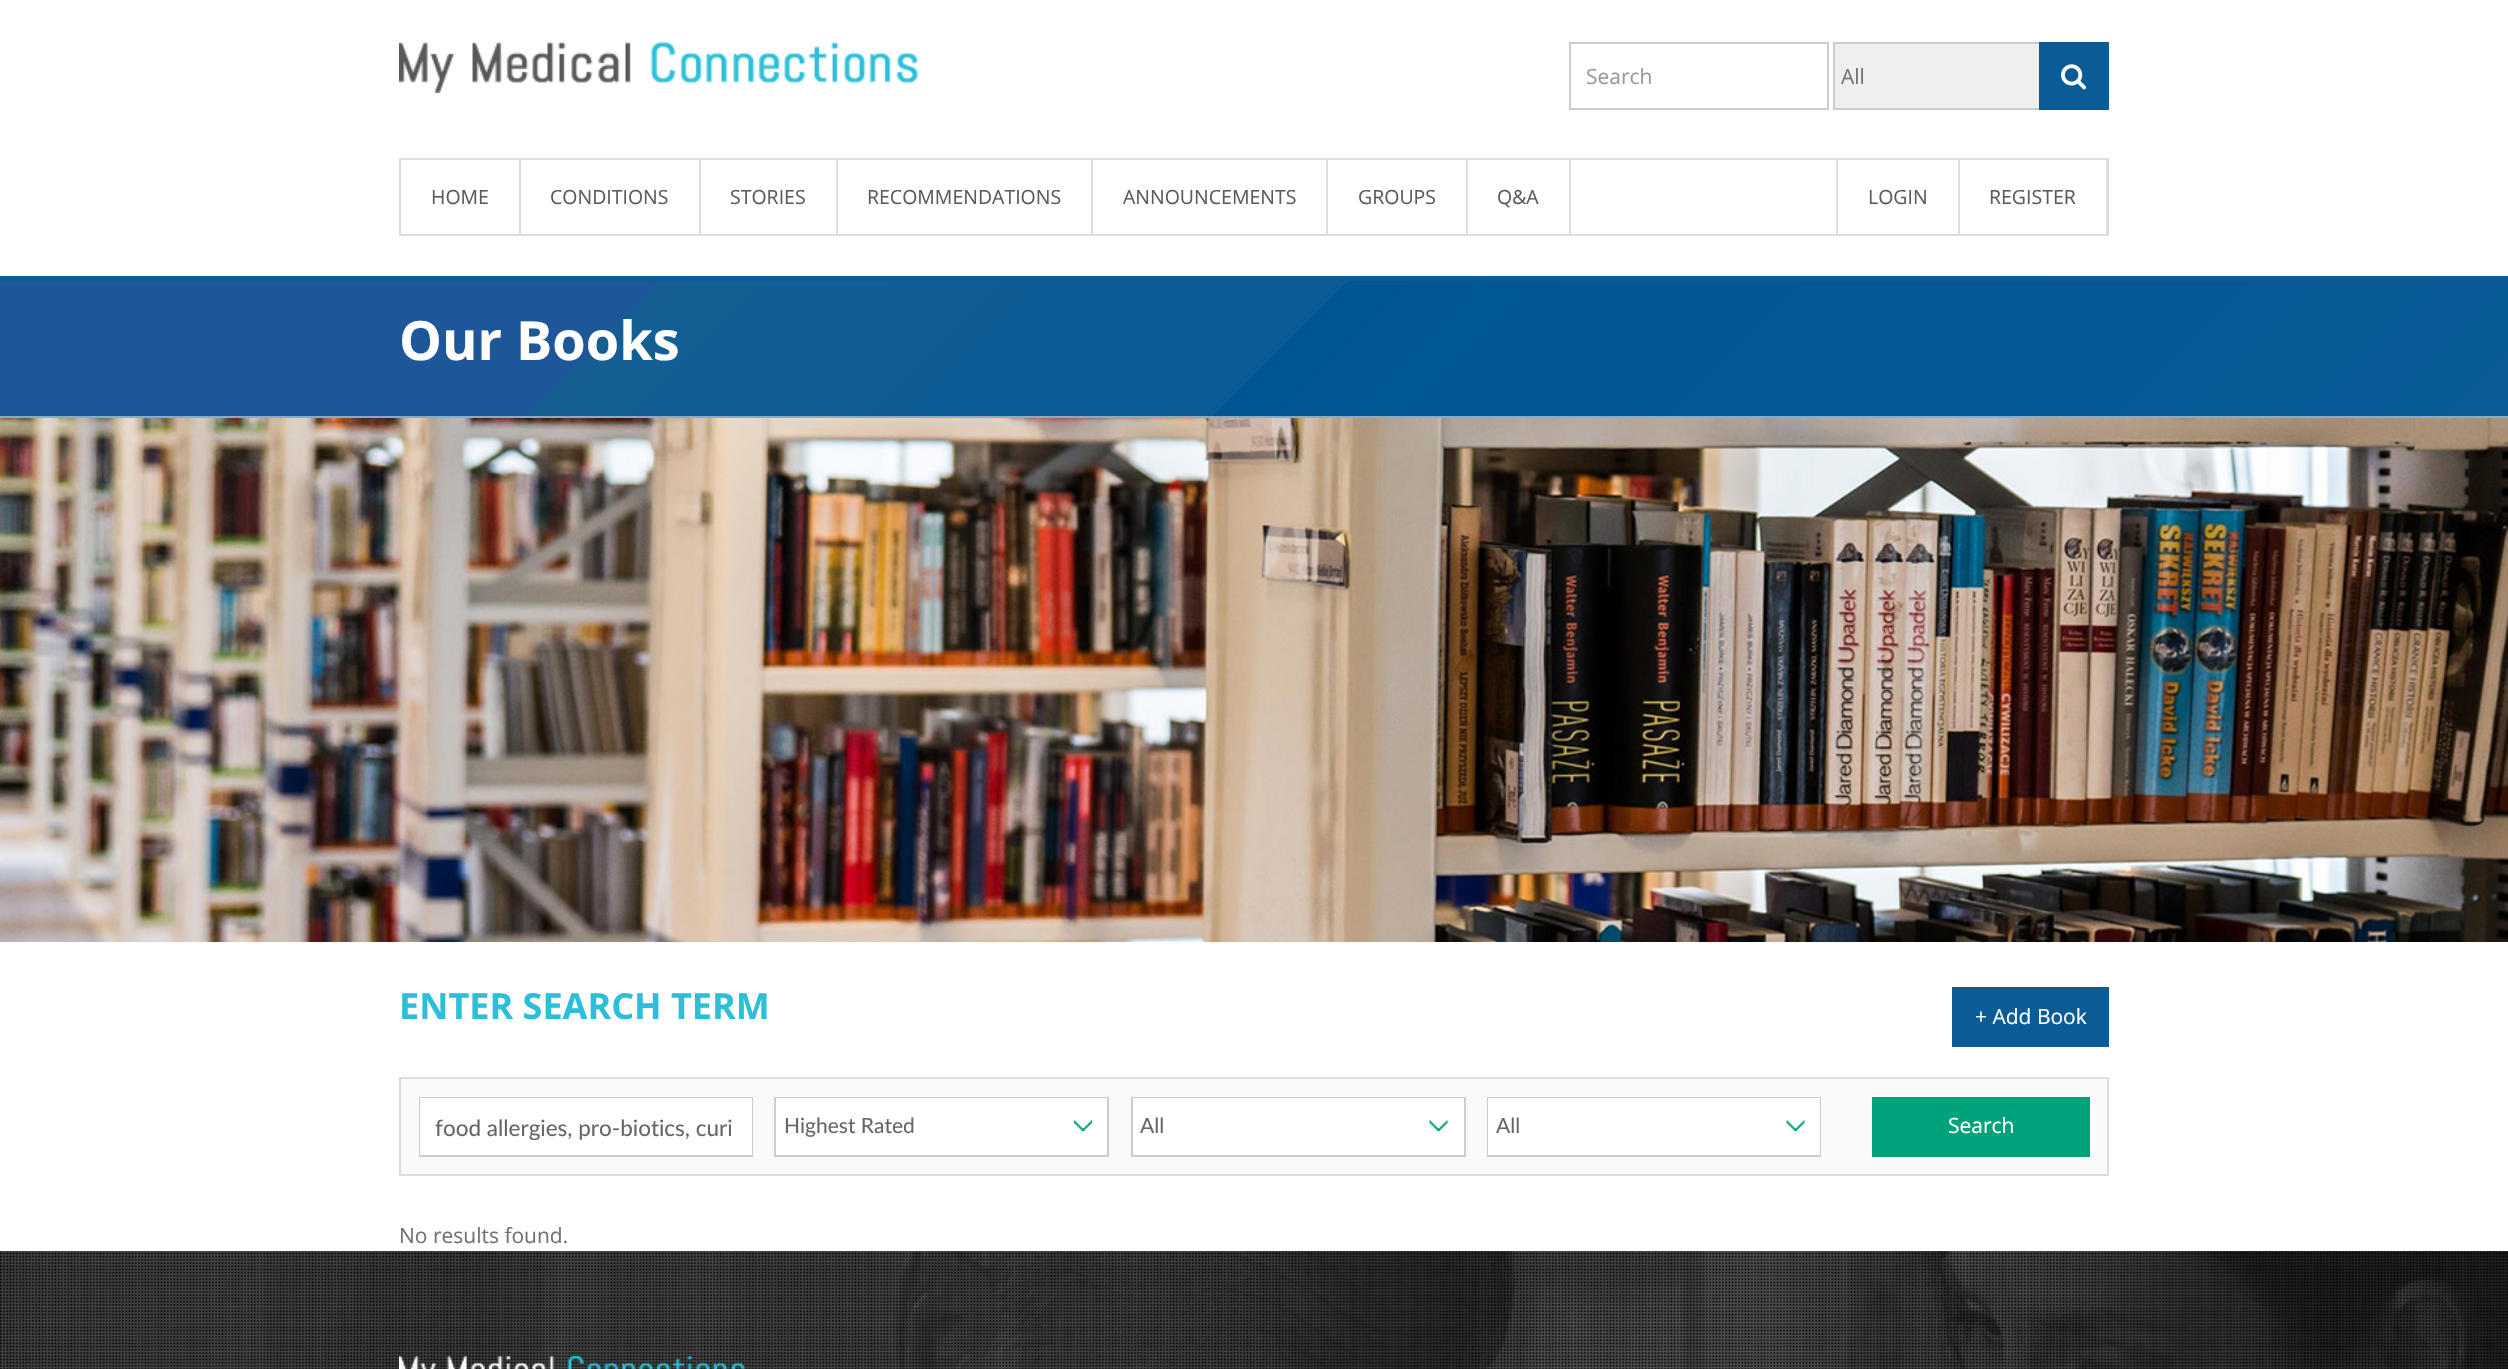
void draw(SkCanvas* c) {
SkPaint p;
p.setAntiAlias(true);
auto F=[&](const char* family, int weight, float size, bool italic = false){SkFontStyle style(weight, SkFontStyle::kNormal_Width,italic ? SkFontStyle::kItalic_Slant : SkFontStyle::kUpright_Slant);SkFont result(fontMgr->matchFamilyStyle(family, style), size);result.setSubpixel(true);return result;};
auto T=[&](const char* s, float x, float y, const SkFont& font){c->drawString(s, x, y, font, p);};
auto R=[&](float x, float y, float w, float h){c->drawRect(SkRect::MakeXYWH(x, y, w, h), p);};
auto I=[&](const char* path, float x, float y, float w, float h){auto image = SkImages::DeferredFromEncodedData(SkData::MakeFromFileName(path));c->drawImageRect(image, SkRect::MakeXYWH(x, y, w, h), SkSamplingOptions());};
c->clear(0xffffffff);
p.setColor(0xff0a5b96);
R(0,276,2508,5);
I("1.png",399,42,519,51);
p.setStroke(true);
p.setStrokeWidth(2);
p.setColor(0xffcccccc);
c->drawRect(SkRect::MakeXYWH(1570,43,258,66),p);
auto f1 = F("Open Sans",400,21);
p.setStroke(false);
p.setColor(0xff999999);
T("Search",1586,84,f1);
p.setColor(0xffefefef);
R(1835,44,204,64);
p.setStroke(true);
p.setColor(0xffcccccc);
c->drawRect(SkRect::MakeXYWH(1834,43,258,66),p);
p.setStroke(false);
p.setColor(0xff727272);
T("All",1841,84,f1);
p.setColor(0xff0a5b96);
R(2039,42,70,68);
I("2.png",2061,64,26,26);
p.setStroke(true);
p.setColor(0xffdddddd);
c->drawRect(SkRect::MakeXYWH(400,159,1708,76),p);
p.setStroke(false);
R(519,159,2,75);
auto f2 = F("Open Sans",400,19.5);
p.setColor(0xff5b5b5b);
T("HOME",431,204,f2);
p.setColor(0xffdddddd);
R(699,159,2,75);
p.setColor(0xff5b5b5b);
T("CONDITIONS",550,204,f2);
p.setColor(0xffdddddd);
R(836,159,2,75);
p.setColor(0xff5b5b5b);
T("STORIES",730,204,f2);
p.setColor(0xffdddddd);
R(1091,159,2,75);
p.setColor(0xff5b5b5b);
T("RECOMMENDATIONS",867,204,f2);
p.setColor(0xffdddddd);
R(1326,159,2,75);
p.setColor(0xff5b5b5b);
T("ANNOUNCEMENTS",1123,204,f2);
p.setColor(0xffdddddd);
R(1466,159,2,75);
p.setColor(0xff5b5b5b);
T("GROUPS",1358,204,f2);
p.setColor(0xffdddddd);
R(1569,159,2,75);
p.setColor(0xff5b5b5b);
T("Q&A",1497,204,f2);
p.setColor(0xffdddddd);
R(1958,159,2,75);
R(1836,159,2,75);
p.setColor(0xff5b5b5b);
T("LOGIN",1868,204,f2);
p.setColor(0xffdddddd);
R(2106,159,1,75);
p.setColor(0xff5b5b5b);
T("REGISTER",1989,204,f2);
{
const SkColor colors[] = {0xff1e5799,0xff1e5799,0xff145e93,0xff0a5b96,0xff005693,0xff0a5b96};
const float stops[] = {0,.25,.25,.51,.51,1};
const SkPoint ends[] = {{593,-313}, {1915,1009}};
p.setShader(SkGradientShader::MakeLinear(ends, colors, stops, 6, SkTileMode::kClamp));
p.setAlpha(255);
}
R(0,281,2508,135);
auto f3 = F("Open Sans",700,54);
p.setShader(nullptr);
p.setColor(0xffffffff);
T("Our Books",399,360,f3);
I("3.png",0,418,2508,524);
p.setColor(0xff85adcb);
R(0,416,2508,2);
auto f4 = F("Open Sans",700,36);
p.setColor(0xff2cbfd9);
T("ENTER SEARCH TERM",399,1019,f4);
p.setColor(0xff0a5b96);
R(1952,987,157,60);
p.setColor(0xffffffff);
T("+ Add Book",1975,1024,f1);
p.setColor(0xfffafafa);
c->drawRect(SkRect::MakeXYWH(400,1078,1708,97),p);
p.setStroke(true);
p.setColor(0xffdddddd);
c->drawRect(SkRect::MakeXYWH(400,1078,1708,97),p);
p.setColor(0xffcccccc);
c->drawRect(SkRect::MakeXYWH(420,1098,332,58),p);
p.setStroke(false);
p.setColor(0xffffffff);
R(420,1098,332,57);
auto f5 = F("Lato",400,22.5);
p.setColor(0xff666666);
T("food allergies, pro-biotics, curi",435,1136,f5);
p.setStroke(true);
p.setColor(0xffcccccc);
c->drawRect(SkRect::MakeXYWH(775,1098,333,58),p);
p.setStroke(false);
p.setColor(0xffffffff);
R(776,1098,331,57);
I("4.png",1074,1120,18,11);
auto f6 = F("Lato",400,21);
p.setColor(0xff666666);
T("Highest Rated",784,1133,f6);
p.setStroke(true);
p.setColor(0xffcccccc);
c->drawRect(SkRect::MakeXYWH(1132,1098,333,58),p);
p.setStroke(false);
p.setColor(0xffffffff);
R(1133,1098,331,57);
I("5.png",1429,1120,19,11);
p.setColor(0xff666666);
T("All",1140,1133,f6);
p.setStroke(true);
p.setColor(0xffcccccc);
c->drawRect(SkRect::MakeXYWH(1488,1098,332,58),p);
p.setStroke(false);
p.setColor(0xffffffff);
R(1488,1098,332,57);
I("6.png",1786,1120,19,11);
p.setColor(0xff666666);
T("All",1496,1133,f6);
p.setColor(0xff00a27c);
R(1872,1097,218,60);
p.setColor(0xffffffff);
T("Search",1948,1133,f1);
p.setColor(0xff727272);
T("No results found.",399,1243,f1);
I("7.png",0,1251,2508,118);
I("8.png",399,1356,347,13);
}
